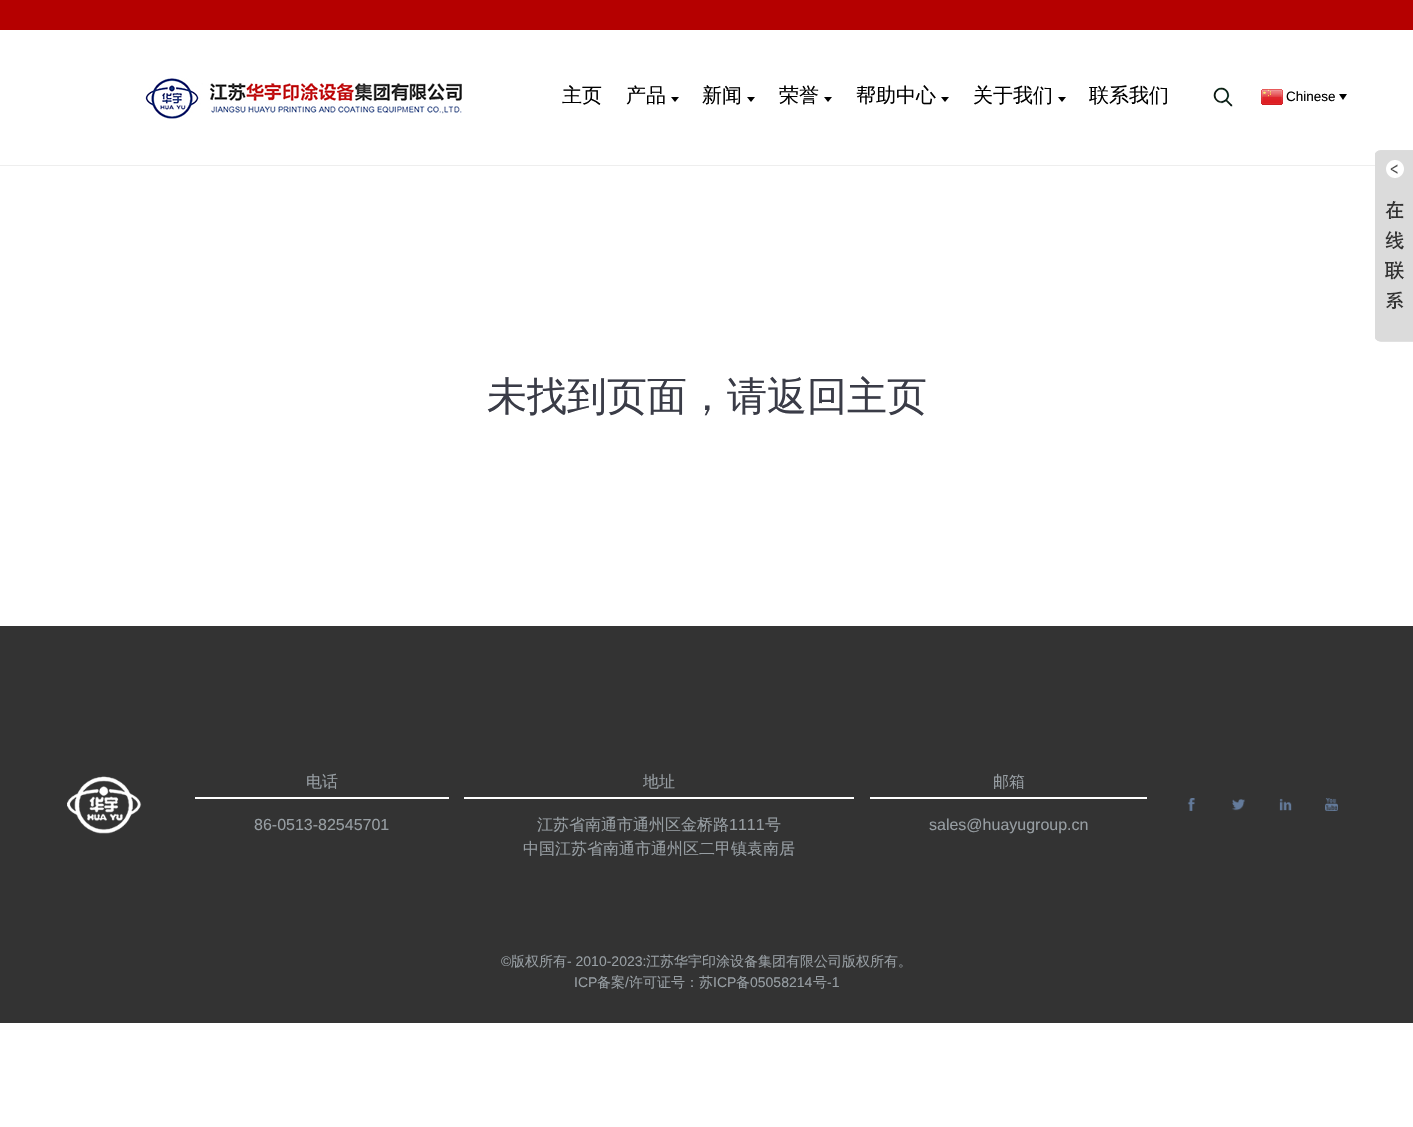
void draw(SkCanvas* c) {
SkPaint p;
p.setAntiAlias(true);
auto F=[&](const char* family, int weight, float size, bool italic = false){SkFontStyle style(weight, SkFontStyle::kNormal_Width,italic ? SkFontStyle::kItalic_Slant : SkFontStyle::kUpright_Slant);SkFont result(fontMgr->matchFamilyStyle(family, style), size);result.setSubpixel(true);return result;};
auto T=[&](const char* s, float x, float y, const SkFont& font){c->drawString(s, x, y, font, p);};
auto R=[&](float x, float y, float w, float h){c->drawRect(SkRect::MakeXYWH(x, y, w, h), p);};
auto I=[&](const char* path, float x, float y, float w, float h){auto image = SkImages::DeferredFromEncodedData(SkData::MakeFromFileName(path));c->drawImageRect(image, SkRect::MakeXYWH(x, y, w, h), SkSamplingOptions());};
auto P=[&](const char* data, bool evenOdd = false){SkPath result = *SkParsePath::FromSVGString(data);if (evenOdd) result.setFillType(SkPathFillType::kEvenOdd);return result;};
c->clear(0xffffffff);
p.setColor(0xffb50000);
R(0,0,1413,30);
p.setColor(0xffeeeeee);
R(0,165,1375,1);
I("1.png",145,78,317,41);
auto f1 = F("WenQuanYi Zen Hei",500,20);
p.setColor(0xff000000);
T("主页",562,102,f1);
T("产品",626,102,f1);
c->drawPath(P("M671 97h8l-4 5z"),p);
T("新闻",702,102,f1);
c->drawPath(P("M747 97h8l-4 5z"),p);
T("荣誉",779,102,f1);
c->drawPath(P("M824 97h8l-4 5z"),p);
T("帮助中心",856,102,f1);
c->drawPath(P("M941 97h8l-4 5z"),p);
T("关于我们",973,102,f1);
c->drawPath(P("M1058 97h8l-4 5z"),p);
T("联系我们",1089,102,f1);
I("2.png",1213,87,20,20);
I("3.png",1261,89,22,16);
auto f2 = F("Liberation Sans",400,13.5);
T("Chinese",1286,101,f2);
c->drawPath(P("M1339 94h8l-4 6z"),p);
auto f3 = F("WenQuanYi Zen Hei",500,40);
p.setColor(0xff3a3c47);
T("未找到页面，请返回主页",487,410,f3);
I("4.png",1375,150,38,192);
p.setColor(0xff333333);
R(0,626,1413,397);
I("5.png",67,776,75,58);
auto f4 = F("WenQuanYi Zen Hei",500,16);
p.setColor(0xff979ea3);
T("电话",306,787,f4);
p.setColor(0xffffffff);
R(195,797,254,2);
auto f5 = F("Liberation Sans",400,16);
p.setColor(0xff979ea3);
T("86-0513-82545701",254,830,f5);
T("地址",643,787,f4);
p.setColor(0xffffffff);
R(464,797,390,2);
p.setColor(0xff979ea3);
T("江苏省南通市通州区金桥路",537,830,f4);
T("1111",729,830,f5);
T("号",765,830,f4);
T("中国江苏省南通市通州区二甲镇袁南居",523,854,f4);
T("邮箱",993,787,f4);
p.setColor(0xffffffff);
R(870,797,277,2);
p.setColor(0xff979ea3);
T("sales@huayugroup.cn",929,830,f5);
I("6.png",1187,798,8,13);
I("7.png",1232,799,13,12);
I("8.png",1279,798,13,13);
I("9.png",1325,798,13,13);
auto f6 = F("Liberation Sans",400,14);
T("©",501,966,f6);
auto f7 = F("WenQuanYi Zen Hei",500,14);
T("版权所有",511,966,f7);
T("- 2010-2023:",567,966,f6);
T("江苏华宇印涂设备集团有限公司版权所有。",646,966,f7);
T("ICP",574,987,f6);
T("备案",597,987,f7);
T("/",625,987,f6);
T("许可证号：苏",629,987,f7);
T("ICP",713,987,f6);
T("备",736,987,f7);
T("05058214",750,987,f6);
T("号",813,987,f7);
T("-1",827,987,f6);
}
